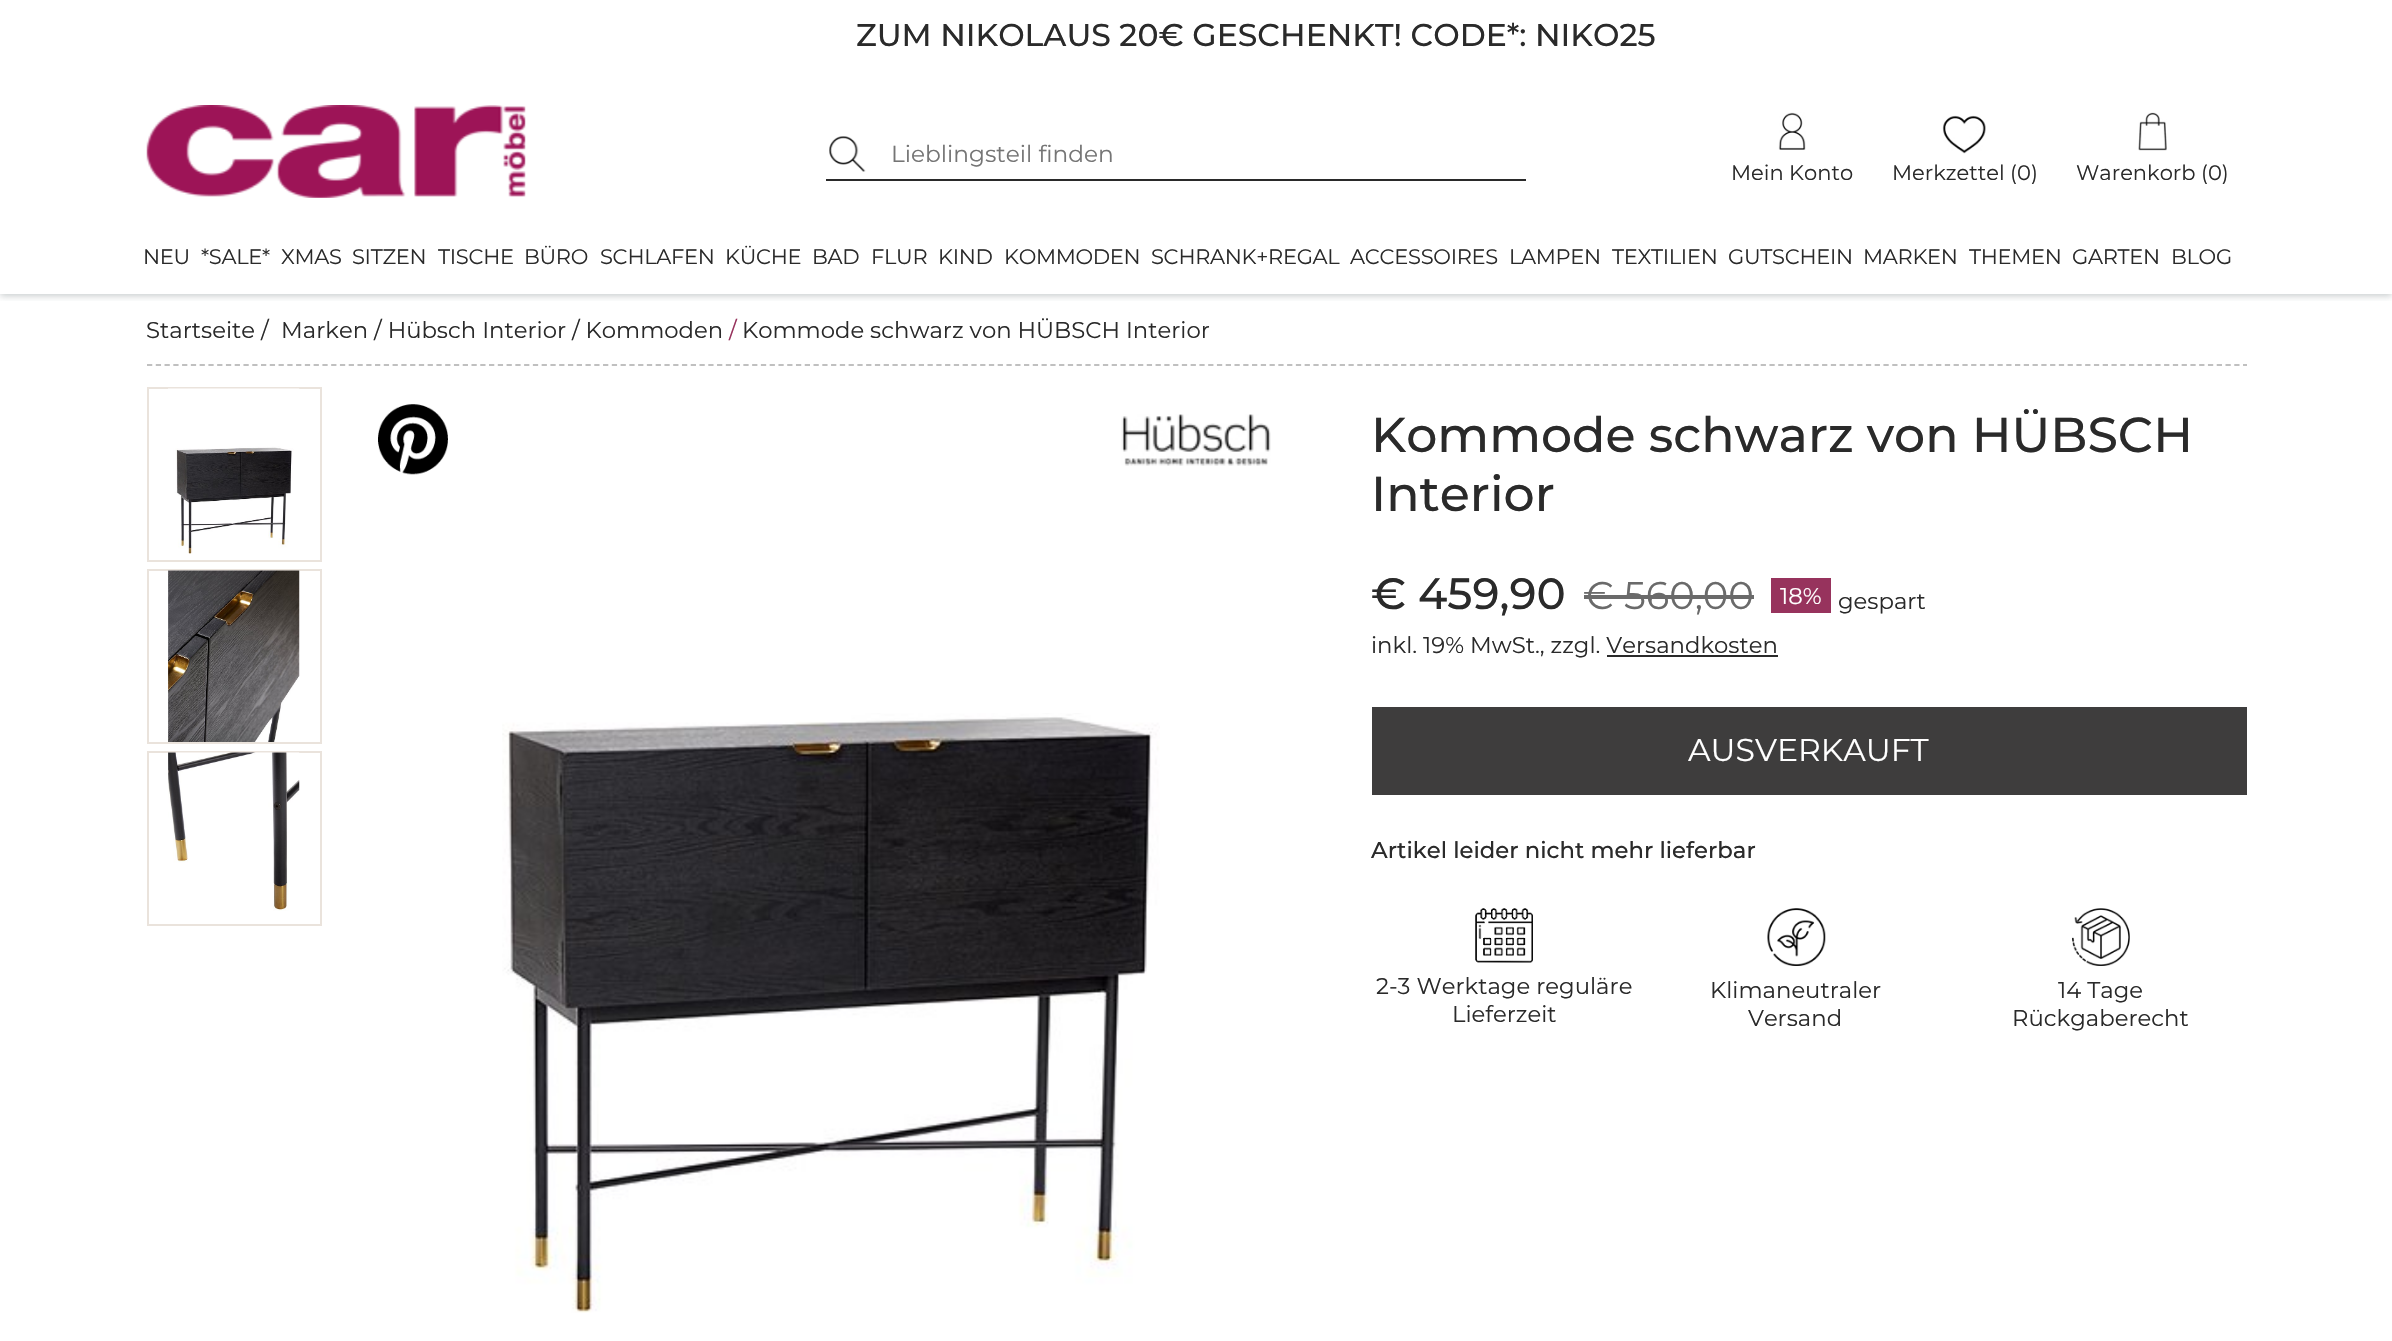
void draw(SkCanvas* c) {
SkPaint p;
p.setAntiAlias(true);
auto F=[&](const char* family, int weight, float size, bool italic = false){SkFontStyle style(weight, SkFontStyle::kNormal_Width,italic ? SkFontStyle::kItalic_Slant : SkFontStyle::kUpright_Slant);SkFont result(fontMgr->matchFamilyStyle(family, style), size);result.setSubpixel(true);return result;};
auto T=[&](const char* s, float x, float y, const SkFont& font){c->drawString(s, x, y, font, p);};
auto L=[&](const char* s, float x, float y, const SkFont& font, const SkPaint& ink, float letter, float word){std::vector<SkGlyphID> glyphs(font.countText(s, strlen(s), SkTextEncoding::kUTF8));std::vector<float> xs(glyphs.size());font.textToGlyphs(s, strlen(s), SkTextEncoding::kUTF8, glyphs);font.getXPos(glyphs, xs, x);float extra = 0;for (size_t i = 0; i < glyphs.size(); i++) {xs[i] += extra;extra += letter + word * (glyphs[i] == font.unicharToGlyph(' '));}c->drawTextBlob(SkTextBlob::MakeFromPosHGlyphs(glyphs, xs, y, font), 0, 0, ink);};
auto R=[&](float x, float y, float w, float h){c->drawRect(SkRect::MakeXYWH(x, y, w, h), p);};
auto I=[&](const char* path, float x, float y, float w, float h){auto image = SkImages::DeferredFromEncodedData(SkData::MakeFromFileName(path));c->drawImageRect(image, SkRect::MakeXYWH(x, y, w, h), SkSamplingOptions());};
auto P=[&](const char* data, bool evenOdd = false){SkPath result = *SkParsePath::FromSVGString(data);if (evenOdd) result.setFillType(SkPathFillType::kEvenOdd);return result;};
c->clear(0xffffffff);
c->save();
c->clipRect(SkRect::MakeXYWH(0,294,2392,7));
p.setColor(0x40253237);
p.setMaskFilter(SkMaskFilter::MakeBlur(kNormal_SkBlurStyle, 3.5));
c->drawRect(SkRect::MakeXYWH(0,2,2392,294),p);
p.setMaskFilter(nullptr);
c->restore();
auto f1 = F("Montserrat",500,31.5);
p.setColor(0xff2a2a2a);
T("ZUM NIKOLAUS 20€ GESCHENKT! CODE*: NIKO25",856,46,f1);
I("1.png",146,105,380,93);
R(826,179,700,2);
I("2.png",829,136,37,36);
auto f2 = F("Montserrat",400,23.25);
p.setColor(0xff757575);
T("Lieblingsteil finden",891,162,f2);
I("3.png",1778,112,28,38);
auto f3 = F("Montserrat",400,21);
p.setColor(0xff2a2a2a);
T("Mein Konto",1731,180,f3);
I("4.png",1942,115,44,39);
T("Merkzettel (0)",1892,180,f3);
I("5.png",2138,112,29,39);
T("Warenkorb (0)",2076,180,f3);
L("NEU",143,264,f3,p,-.3,0);
L("*SALE*",201,264,f3,p,-.3,0);
L("XMAS",281,264,f3,p,-.3,0);
L("SITZEN",352,264,f3,p,-.3,0);
L("TISCHE",438,264,f3,p,-.3,0);
L("BÜRO",524,264,f3,p,-.3,0);
L("SCHLAFEN",600,264,f3,p,-.3,0);
L("KÜCHE",725,264,f3,p,-.3,0);
L("BAD",812,264,f3,p,-.3,0);
L("FLUR",871,264,f3,p,-.3,0);
L("KIND",938,264,f3,p,-.3,0);
L("KOMMODEN",1004,264,f3,p,-.3,0);
L("SCHRANK+REGAL",1151,264,f3,p,-.3,0);
L("ACCESSOIRES",1350,264,f3,p,-.3,0);
L("LAMPEN",1509,264,f3,p,-.3,0);
L("TEXTILIEN",1612,264,f3,p,-.3,0);
L("GUTSCHEIN",1728,264,f3,p,-.3,0);
L("MARKEN",1863,264,f3,p,-.3,0);
L("THEMEN",1969,264,f3,p,-.3,0);
L("GARTEN",2072,264,f3,p,-.3,0);
L("BLOG",2171,264,f3,p,-.3,0);
p.setStroke(true);
p.setStrokeWidth(1.8);
p.setColor(0xffc0c0c0);
p.setPathEffect(SkDashPathEffect::Make({{5.25f,3.52f}}, 0));
c->drawPath(P("M147 365h2100"),p);
p.setPathEffect(nullptr);
auto f4 = F("Montserrat",400,22.75);
p.setStroke(false);
p.setColor(0xff2a2a2a);
T("Startseite /",146,338,f4);
T("Marken / Hübsch Interior / Kommoden",281,338,f4);
p.setColor(0xff97335d);
T("/",729,338,f4);
p.setColor(0xff2a2a2a);
T("Kommode schwarz von HÜBSCH Interior",742,338,f4);
p.setStroke(true);
p.setStrokeWidth(2);
p.setColor(0xffeae3dc);
c->drawRect(SkRect::MakeXYWH(148,388,173,173),p);
I("6.png",168,388,132,166);
c->drawRect(SkRect::MakeXYWH(148,570,173,173),p);
I("7.png",168,570,132,172);
c->drawRect(SkRect::MakeXYWH(148,752,173,173),p);
I("8.png",168,752,132,159);
I("9.png",378,404,70,71);
I("10.png",1121,414,150,52);
I("11.png",502,713,658,600);
auto f5 = F("Montserrat",500,49);
p.setStroke(false);
p.setColor(0xff2a2a2a);
T("Kommode schwarz von HÜBSCH",1371,452,f5);
T("Interior",1371,511,f5);
auto f6 = F("Montserrat",500,43.75);
T("€ 459,90",1371,609,f6);
auto f7 = F("Montserrat",400,38.5);
p.setColor(0xff6a6a6a);
T("€ 560,00",1583,609,f7);
R(1584,595,170,4);
p.setColor(0xff97335d);
R(1771,578,60,35);
p.setColor(0xffffffff);
T("18%",1780,604,f4);
p.setColor(0xff2a2a2a);
T("gespart",1838,609,f4);
T("inkl. 19% MwSt., zzgl. Versandkosten",1371,653,f4);
R(1607,655,171,2);
p.setColor(0xff3e3d3d);
R(1372,707,875,88);
auto f8 = F("Montserrat",400,31.5);
p.setColor(0xffffffff);
T("AUSVERKAUFT",1688,761,f8);
auto f9 = F("Montserrat",500,22.75);
p.setColor(0xff2a2a2a);
T("Artikel leider nicht mehr lieferbar",1371,858,f9);
I("12.png",1475,908,58,55);
T("2-3 Werktage reguläre",1376,994,f4);
T("Lieferzeit",1452,1022,f4);
I("13.png",1767,908,59,58);
T("Klimaneutraler",1710,998,f4);
T("Versand",1748,1026,f4);
I("14.png",2072,908,58,58);
T("14 Tage",2058,998,f4);
T("Rückgaberecht",2012,1026,f4);
}
